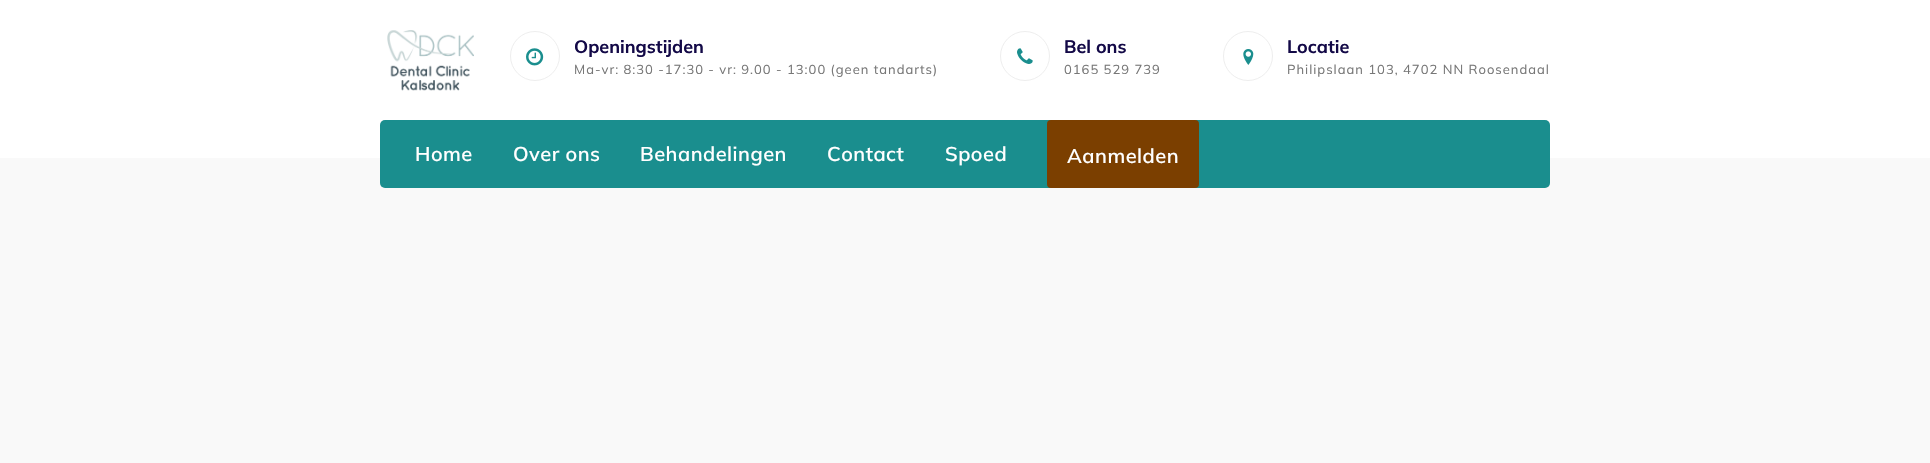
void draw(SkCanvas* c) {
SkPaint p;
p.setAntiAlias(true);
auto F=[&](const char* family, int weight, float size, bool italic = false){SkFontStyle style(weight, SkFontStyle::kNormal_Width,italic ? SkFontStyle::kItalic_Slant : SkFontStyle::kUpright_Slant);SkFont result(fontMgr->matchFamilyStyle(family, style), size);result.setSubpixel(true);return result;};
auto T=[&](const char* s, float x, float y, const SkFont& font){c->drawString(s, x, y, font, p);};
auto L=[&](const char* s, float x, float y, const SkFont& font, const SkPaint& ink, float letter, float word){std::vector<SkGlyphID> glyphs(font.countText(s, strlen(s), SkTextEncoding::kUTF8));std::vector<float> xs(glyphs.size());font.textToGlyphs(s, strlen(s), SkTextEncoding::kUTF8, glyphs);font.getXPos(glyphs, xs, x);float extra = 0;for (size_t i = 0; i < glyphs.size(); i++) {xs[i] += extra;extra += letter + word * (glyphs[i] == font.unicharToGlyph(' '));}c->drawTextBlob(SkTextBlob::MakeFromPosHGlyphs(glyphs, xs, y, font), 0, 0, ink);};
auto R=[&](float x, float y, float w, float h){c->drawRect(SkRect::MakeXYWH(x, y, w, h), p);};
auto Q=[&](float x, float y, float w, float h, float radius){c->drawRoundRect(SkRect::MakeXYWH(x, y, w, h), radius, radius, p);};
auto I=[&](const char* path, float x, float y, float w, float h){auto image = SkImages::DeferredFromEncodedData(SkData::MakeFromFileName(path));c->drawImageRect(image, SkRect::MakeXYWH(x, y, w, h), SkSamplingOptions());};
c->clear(0xffffffff);
I("1.png",387,30,87,61);
p.setStroke(true);
p.setStrokeWidth(1);
p.setColor(0xffeeeeee);
c->drawCircle(535,56,24.5,p);
I("2.png",526,48,18,18);
auto f1 = F("Mulish",700,18);
p.setStroke(false);
p.setColor(0xff130947);
T("Openingstijden",574,53,f1);
auto f2 = F("Mulish",400,13);
p.setColor(0xff777777);
L("Ma-vr: 8:30 -17:30 - vr: 9.00 - 13:00 (geen tandarts)",574,74,f2,p,1,0);
p.setStroke(true);
p.setColor(0xffeeeeee);
c->drawCircle(1025,56,24.5,p);
I("3.png",1017,48,16,16);
p.setStroke(false);
p.setColor(0xff130947);
T("Bel ons",1064,53,f1);
p.setColor(0xff777777);
L("0165 529 739",1064,74,f2,p,1,0);
p.setStroke(true);
p.setColor(0xffeeeeee);
c->drawCircle(1248,56,24.5,p);
I("4.png",1243,49,11,16);
p.setStroke(false);
p.setColor(0xff130947);
T("Locatie",1287,53,f1);
p.setColor(0xff777777);
L("Philipslaan 103, 4702 NN Roosendaal",1287,74,f2,p,1,0);
p.setColor(0xfff9f9f9);
R(0,158,1930,305);
p.setColor(0xff1a8e8e);
Q(380,120,1170,68,5);
auto f3 = F("Mulish",600,20);
p.setColor(0xffffffff);
L("Home",415,161,f3,p,.5,0);
L("Over ons",513,161,f3,p,.5,0);
L("Behandelingen",640,161,f3,p,.5,0);
L("Contact",827,161,f3,p,.5,0);
L("Spoed",945,161,f3,p,.5,0);
p.setColor(0xff7b3f00);
Q(1047,120,152,68,4);
p.setColor(0xffffffff);
L("Aanmelden",1067,163,f3,p,.5,0);
}
